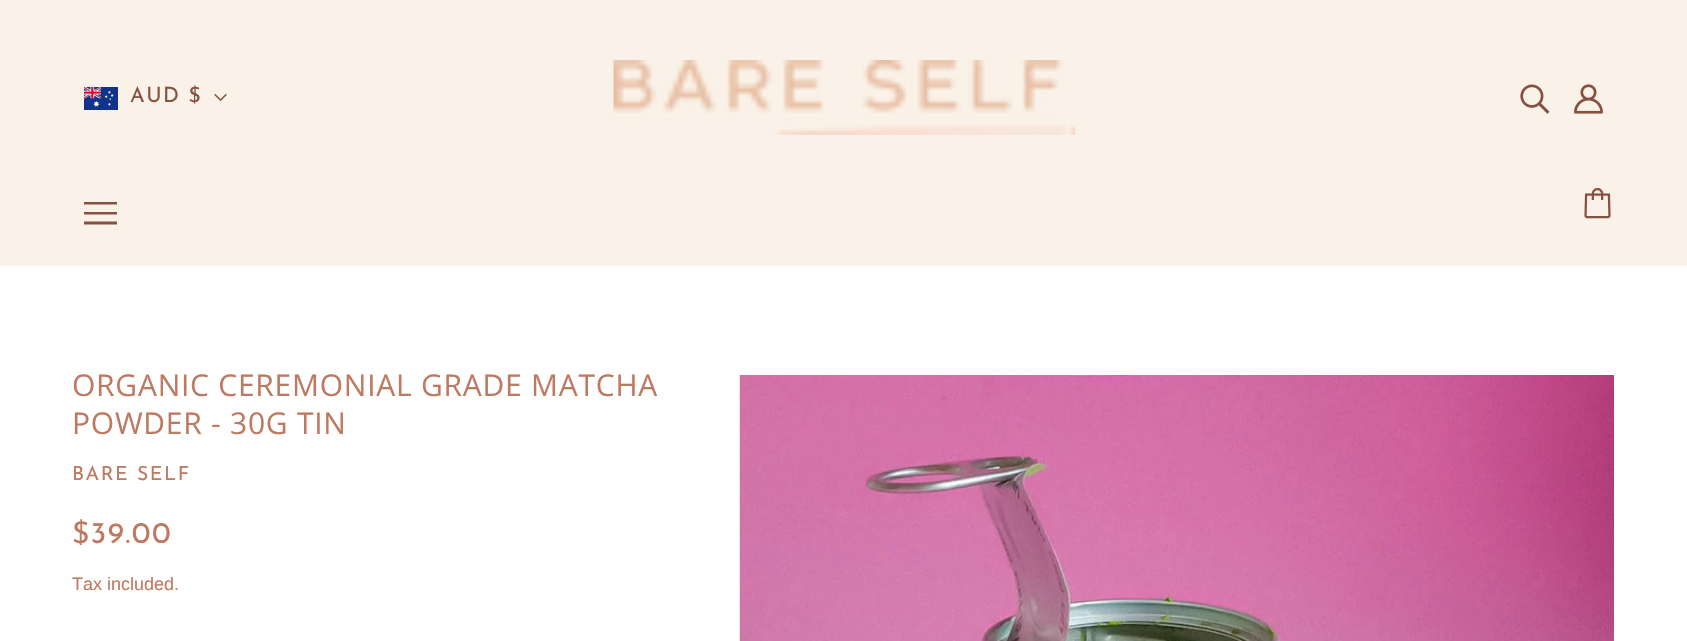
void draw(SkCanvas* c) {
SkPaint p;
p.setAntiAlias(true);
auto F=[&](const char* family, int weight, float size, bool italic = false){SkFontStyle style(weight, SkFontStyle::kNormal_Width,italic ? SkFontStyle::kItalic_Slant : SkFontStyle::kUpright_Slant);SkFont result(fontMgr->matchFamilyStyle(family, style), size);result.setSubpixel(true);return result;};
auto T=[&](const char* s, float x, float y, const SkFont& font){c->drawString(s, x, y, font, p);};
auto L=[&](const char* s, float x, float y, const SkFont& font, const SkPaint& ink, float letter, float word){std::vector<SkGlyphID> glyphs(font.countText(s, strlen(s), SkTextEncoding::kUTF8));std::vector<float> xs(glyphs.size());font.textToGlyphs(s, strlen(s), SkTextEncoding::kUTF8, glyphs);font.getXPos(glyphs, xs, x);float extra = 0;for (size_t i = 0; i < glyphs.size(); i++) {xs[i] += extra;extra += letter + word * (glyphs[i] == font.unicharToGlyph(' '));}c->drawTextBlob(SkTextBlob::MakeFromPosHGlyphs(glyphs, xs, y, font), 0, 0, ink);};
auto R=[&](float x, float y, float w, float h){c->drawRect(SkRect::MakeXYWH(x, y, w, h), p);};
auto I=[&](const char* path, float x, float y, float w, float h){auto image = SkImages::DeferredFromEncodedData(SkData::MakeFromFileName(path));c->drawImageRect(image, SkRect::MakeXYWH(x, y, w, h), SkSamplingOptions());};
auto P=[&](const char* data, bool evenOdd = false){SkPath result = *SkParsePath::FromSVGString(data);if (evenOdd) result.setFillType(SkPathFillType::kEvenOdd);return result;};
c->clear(0xffffffff);
p.setColor(0xfffaf2e8);
R(0,0,1687,266);
I("1.png",84,87,34,23);
auto f1 = F("Josefin Sans",400,21);
p.setColor(0xff865141);
L("AUD $",130,102,f1,p,1.5,0);
I("2.png",214,93,13,9);
I("3.png",613,60,463,75);
I("4.png",1520,84,30,30);
I("5.png",1574,84,29,30);
c->drawPath(P("M84 204.5v-2.5h33v2.5zm0 10v-2.5h33v2.5zm0 10v-3h33v3z"),p);
I("6.png",1584,188,27,31);
auto f2 = F("Open Sans",400,30);
p.setColor(0xffbd7a61);
L("ORGANIC CEREMONIAL GRADE MATCHA",72,396,f2,p,.75,0);
L("POWDER - 30G TIN",72,434,f2,p,.75,0);
auto f3 = F("Josefin Sans",400,19.5);
L("BARE SELF",72,480,f3,p,1.5,0);
auto f4 = F("Josefin Sans",400,30);
L("$39.00",72,543,f4,p,1.5,0);
auto f5 = F("Arimo",400,18);
T("Tax included.",72,590,f5);
I("7.png",739,375,875,266);
}
